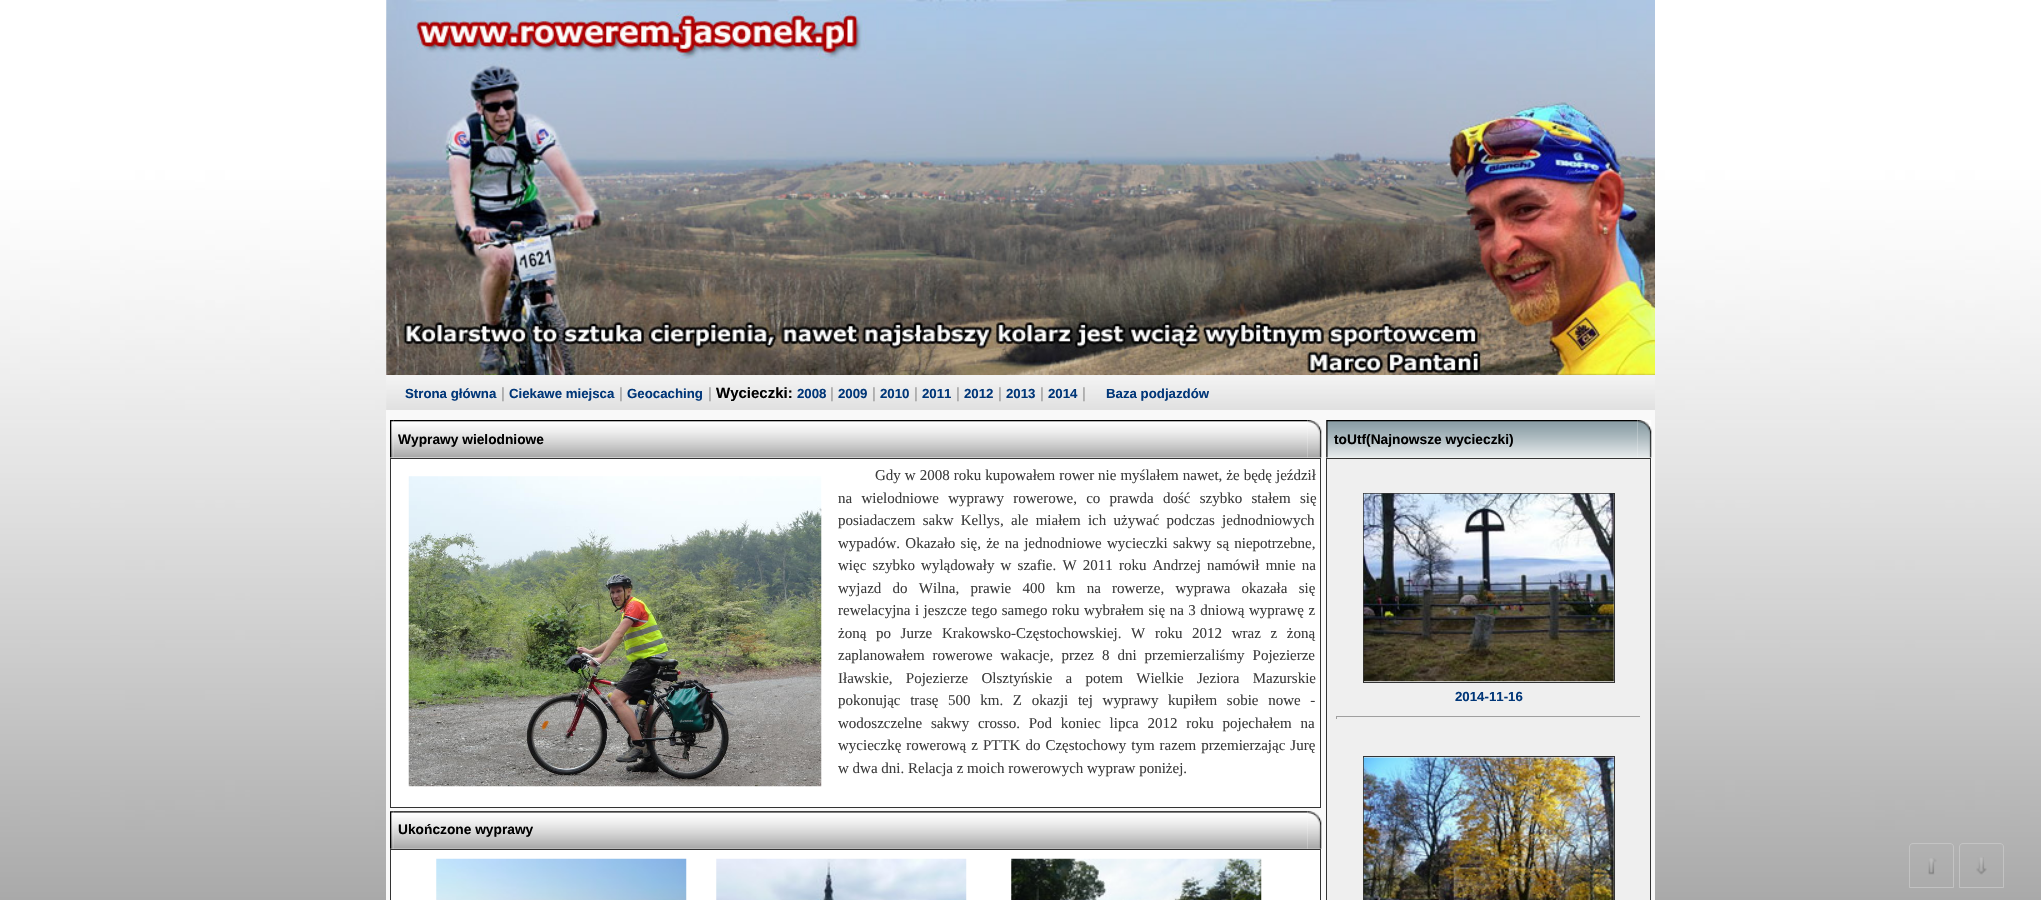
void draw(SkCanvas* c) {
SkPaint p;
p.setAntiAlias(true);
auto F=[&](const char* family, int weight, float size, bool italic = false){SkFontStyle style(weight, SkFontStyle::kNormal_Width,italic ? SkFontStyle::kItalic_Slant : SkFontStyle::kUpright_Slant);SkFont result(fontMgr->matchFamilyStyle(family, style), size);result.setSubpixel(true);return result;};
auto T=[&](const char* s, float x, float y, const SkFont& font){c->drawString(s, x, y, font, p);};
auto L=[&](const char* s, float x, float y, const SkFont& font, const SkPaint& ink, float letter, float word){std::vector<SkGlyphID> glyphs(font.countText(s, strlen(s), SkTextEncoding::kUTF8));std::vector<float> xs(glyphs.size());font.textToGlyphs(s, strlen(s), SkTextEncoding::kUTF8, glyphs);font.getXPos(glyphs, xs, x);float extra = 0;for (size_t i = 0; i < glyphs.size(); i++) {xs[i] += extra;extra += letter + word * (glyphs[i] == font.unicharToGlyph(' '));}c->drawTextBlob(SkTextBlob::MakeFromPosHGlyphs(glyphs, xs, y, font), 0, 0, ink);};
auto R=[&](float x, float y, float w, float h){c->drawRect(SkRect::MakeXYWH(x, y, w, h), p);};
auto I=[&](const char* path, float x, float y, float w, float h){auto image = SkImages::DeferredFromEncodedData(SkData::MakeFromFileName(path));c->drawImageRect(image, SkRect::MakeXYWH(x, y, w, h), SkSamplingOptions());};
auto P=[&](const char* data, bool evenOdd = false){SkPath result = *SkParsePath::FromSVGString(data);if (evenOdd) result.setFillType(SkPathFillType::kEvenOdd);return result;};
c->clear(0xffffffff);
I("1.png",0,0,2041,900);
I("2.png",386,14,1,361);
I("3.png",386,0,1269,375);
I("4.png",386,375,1269,35);
auto f1 = F("Liberation Sans",700,13.25);
p.setColor(0xff003678);
T("Strona główna",405,398,f1);
auto f2 = F("Liberation Sans",400,15);
p.setColor(0xff999999);
T("|",501,398,f2);
p.setColor(0xff003678);
T("Ciekawe miejsca",509,398,f1);
p.setColor(0xff999999);
T("|",619,398,f2);
p.setColor(0xff003678);
T("Geocaching",627,398,f1);
p.setColor(0xff999999);
T("|",708,398,f2);
auto f3 = F("Liberation Sans",700,15);
p.setColor(0xff000000);
T("Wycieczki:",716,398,f3);
p.setColor(0xff003678);
T("2008",797,398,f1);
p.setColor(0xff999999);
T("|",830,398,f2);
p.setColor(0xff003678);
T("2009",838,398,f1);
p.setColor(0xff999999);
T("|",872,398,f2);
p.setColor(0xff003678);
T("2010",880,398,f1);
p.setColor(0xff999999);
T("|",914,398,f2);
p.setColor(0xff003678);
T("2011",922,398,f1);
p.setColor(0xff999999);
T("|",956,398,f2);
p.setColor(0xff003678);
T("2012",964,398,f1);
p.setColor(0xff999999);
T("|",998,398,f2);
p.setColor(0xff003678);
T("2013",1006,398,f1);
p.setColor(0xff999999);
T("|",1040,398,f2);
p.setColor(0xff003678);
T("2014",1048,398,f1);
p.setColor(0xff999999);
T("|",1082,398,f2);
p.setColor(0xff003678);
T("Baza podjazdów",1106,398,f1);
p.setColor(0xfff9f9f9);
R(386,410,1269,490);
I("5.png",390,420,4,38);
I("6.png",393,420,915,38);
auto f4 = F("Liberation Sans",700,13.75);
p.setColor(0xff000000);
T("Wyprawy wielodniowe",398,444,f4);
I("7.png",1307,420,15,38);
p.setColor(0xffffffff);
c->drawRect(SkRect::MakeXYWH(390.5,458.5,930,349),p);
p.setStroke(true);
p.setStrokeWidth(1);
p.setColor(0xff333333);
c->drawRect(SkRect::MakeXYWH(390.5,458.5,930,349),p);
I("8.png",408,476,414,311);
auto f5 = F("Liberation Serif",400,15);
p.setStroke(false);
p.setColor(0xff3d3d3d);
L("Gdy w 2008 roku kupowałem rower nie myślałem nawet, że będę jeździł",875,480,f5,p,0,.25);
L("na wielodniowe wyprawy rowerowe, co prawda dość szybko stałem się",838,503,f5,p,0,5.5);
L("posiadaczem sakw Kellys, ale miałem ich używać podczas jednodniowych",838,525,f5,p,0,3.5);
L("wypadów. Okazało się, że na jednodniowe wycieczki sakwy są niepotrzebne,",838,548,f5,p,0,1.5);
L("więc szybko wylądowały w szafie. W 2011 roku Andrzej namówił mnie na",838,570,f5,p,0,2.4);
L("wyjazd do Wilna, prawie 400 km na rowerze, wyprawa okazała się",838,593,f5,p,0,7.5);
L("rewelacyjna i jeszcze tego samego roku wybrałem się na 3 dniową wyprawę z",838,615,f5,p,0,.75);
L("żoną po Jurze Krakowsko-Częstochowskiej. W roku 2012 wraz z żoną",838,638,f5,p,0,5.9);
L("zaplanowałem rowerowe wakacje, przez 8 dni przemierzaliśmy Pojezierze",838,660,f5,p,0,4.25);
L("Iławskie, Pojezierze Olsztyńskie a potem Wielkie Jeziora Mazurskie",838,683,f5,p,0,9.5);
L("pokonując trasę 500 km. Z okazji tej wyprawy kupiłem sobie nowe -",838,705,f5,p,0,5.9);
L("wodoszczelne sakwy crosso. Pod koniec lipca 2012 roku pojechałem na",838,728,f5,p,0,5);
L("wycieczkę rowerową z PTTK do Częstochowy tym razem przemierzając Jurę",838,750,f5,p,0,1.25);
T("w dwa dni. Relacja z moich rowerowych wypraw poniżej.",838,773,f5);
I("9.png",390,811,4,38);
I("10.png",393,811,915,38);
p.setColor(0xff000000);
T("Ukończone wyprawy",398,834,f4);
I("11.png",1307,811,15,38);
p.setColor(0xffffffff);
c->drawRect(SkRect::MakeXYWH(390.5,849.5,930,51),p);
p.setStroke(true);
p.setColor(0xff333333);
c->drawRect(SkRect::MakeXYWH(390.5,849.5,930,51),p);
I("12.png",436,858,251,42);
I("13.png",716,858,251,42);
I("14.png",1011,858,251,42);
I("15.png",1326,420,4,38);
I("16.png",1330,420,308,38);
p.setStroke(false);
p.setColor(0xff000000);
T("toUtf(Najnowsze wycieczki)",1334,444,f4);
I("17.png",1637,420,15,38);
p.setColor(0xffefefef);
c->drawRect(SkRect::MakeXYWH(1326.5,458.5,324,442),p);
p.setStroke(true);
p.setColor(0xff333333);
c->drawRect(SkRect::MakeXYWH(1326.5,458.5,324,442),p);
c->drawRect(SkRect::MakeXYWH(1363.5,493.5,251,189),p);
I("18.png",1363,493,251,189);
p.setStroke(false);
p.setColor(0xff003678);
T("2014-11-16",1455,701,f1);
p.setColor(0xff9f9f9f);
R(1336,716,305,1);
p.setColor(0xffeeeeee);
R(1640,716,1,3);
p.setColor(0xff9f9f9f);
R(1336,716,1,3);
p.setStroke(true);
p.setColor(0xff333333);
c->drawRect(SkRect::MakeXYWH(1363.5,756.5,251,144),p);
I("19.png",1363,757,251,143);
I("20.png",1928,858,9,17);
p.setColor(0xb3cccccc);
c->drawPath(P("M1913 843.5h37c2 0 3.5 1.5 3.5 3.5v40.5h-44v-40.5c0-2 1.5-3.5 3.5-3.5z"),p);
I("21.png",1976,857,11,18);
c->drawPath(P("M1963 843.5h37c2 0 3.5 1.5 3.5 3.5v40.5h-44v-40.5c0-2 1.5-3.5 3.5-3.5z"),p);
}
